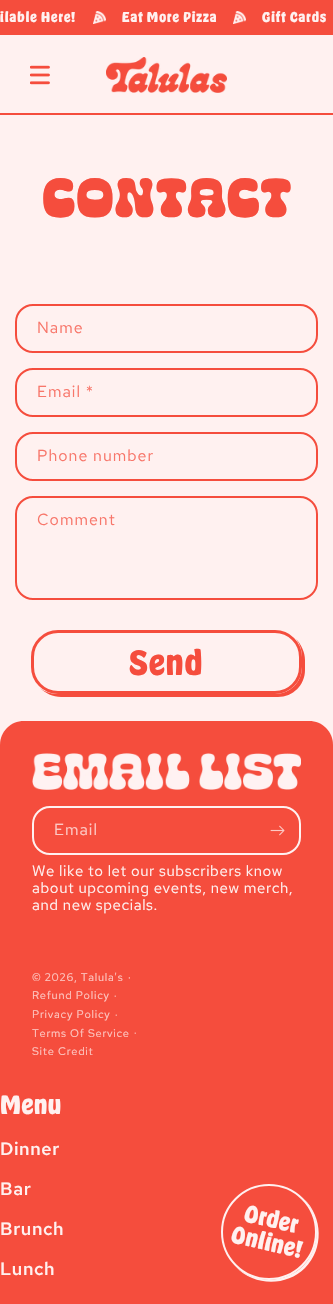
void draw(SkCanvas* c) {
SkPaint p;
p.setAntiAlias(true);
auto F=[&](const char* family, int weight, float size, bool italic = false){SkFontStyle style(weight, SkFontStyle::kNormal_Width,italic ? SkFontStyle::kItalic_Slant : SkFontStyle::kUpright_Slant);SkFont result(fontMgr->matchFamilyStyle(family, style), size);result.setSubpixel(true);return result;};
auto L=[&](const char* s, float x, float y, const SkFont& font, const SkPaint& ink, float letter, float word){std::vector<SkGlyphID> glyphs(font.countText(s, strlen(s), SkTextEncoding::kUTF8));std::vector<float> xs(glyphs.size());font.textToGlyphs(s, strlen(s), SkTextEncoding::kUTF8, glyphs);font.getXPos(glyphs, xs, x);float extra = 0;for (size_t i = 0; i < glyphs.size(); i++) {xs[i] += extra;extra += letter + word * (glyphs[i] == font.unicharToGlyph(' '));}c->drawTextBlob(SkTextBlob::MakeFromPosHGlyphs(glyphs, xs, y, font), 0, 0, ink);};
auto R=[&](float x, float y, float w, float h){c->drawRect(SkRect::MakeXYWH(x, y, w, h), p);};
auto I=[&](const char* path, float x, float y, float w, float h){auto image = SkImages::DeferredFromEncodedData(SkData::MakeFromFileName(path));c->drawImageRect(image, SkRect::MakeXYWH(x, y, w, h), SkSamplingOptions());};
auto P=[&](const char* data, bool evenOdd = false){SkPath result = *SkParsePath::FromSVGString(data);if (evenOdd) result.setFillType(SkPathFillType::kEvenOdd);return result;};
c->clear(0xfffff1f0);
p.setColor(0xfff54d3d);
R(0,0,333,35);
auto f1 = F("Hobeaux",700,13);
p.setColor(0xfffff1f0);
L("ilable Here!",0,22,f1,p,1,0);
I("1.png",93,11,13,13);
L("Eat More Pizza",122,22,f1,p,1,0);
I("1.png",233,11,13,13);
L("Gift Cards",262,22,f1,p,1,0);
p.setColor(0xfff54d3d);
R(0,113,333,2);
I("2.png",30,65,20,20);
I("3.png",106,57,121,36);
auto f2 = F("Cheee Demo",500,60);
L("Contact",42,217,f2,p,.6,0);
p.setStroke(true);
p.setStrokeWidth(2);
c->drawRoundRect(SkRect::MakeXYWH(16,305,301,47),17,17,p);
auto f3 = F("Red Hat Text",400,16);
p.setStroke(false);
p.setColor(0xfff8766a);
L("Name",37,333,f3,p,1,0);
p.setStroke(true);
p.setColor(0xfff54d3d);
c->drawRoundRect(SkRect::MakeXYWH(16,369,301,47),17,17,p);
p.setStroke(false);
p.setColor(0xfff8766a);
L("Email *",37,397,f3,p,1,0);
p.setStroke(true);
p.setColor(0xfff54d3d);
c->drawRoundRect(SkRect::MakeXYWH(16,433,301,47),17,17,p);
p.setStroke(false);
p.setColor(0xfff8766a);
L("Phone number",37,461,f3,p,1,0);
p.setStroke(true);
p.setColor(0xfff54d3d);
c->drawRoundRect(SkRect::MakeXYWH(16,497,301,102),17,17,p);
p.setStroke(false);
p.setColor(0xfff8766a);
L("Comment",37,525,f3,p,1,0);
p.setColor(0xfff54d3d);
c->drawPath(P("M40 688c5 5 13 9 21 9h217c15 0 27-12 27-27v-10c0-8-4-16-9-21c4 5 6 11 6 18v10c0 15-12 27-27 27h-217c-7 0-13-2-18-6z"),p);
p.setColor(0xfffff1f0);
c->drawRoundRect(SkRect::MakeXYWH(32.5,631.5,268,61),25.5,25.5,p);
p.setStroke(true);
p.setStrokeWidth(3);
p.setColor(0xfff54d3d);
c->drawRoundRect(SkRect::MakeXYWH(32.5,631.5,268,61),25.5,25.5,p);
auto f4 = F("Hobeaux",700,32);
p.setStroke(false);
L("Send",129,675,f4,p,1,0);
c->drawPath(P("M24 721h285c13.5 0 24 10.5 24 24v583h-333v-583c0-13.5 10.5-24 24-24z"),p);
I("4.png",32,753,269,37);
p.setStroke(true);
p.setStrokeWidth(2);
p.setColor(0xfffff1f0);
c->drawRoundRect(SkRect::MakeXYWH(33,807,267,47),17,17,p);
p.setStroke(false);
p.setColor(0xfffdc8c3);
L("Email",54,835,f3,p,1,0);
I("5.png",270,825,15,11);
auto f5 = F("Red Hat Text",400,15);
p.setColor(0xfffff1f0);
L("We like to let our subscribers know",32,876,f5,p,.6,0);
L("about upcoming events, new merch,",32,893,f5,p,.6,0);
L("and new specials.",32,910,f5,p,.6,0);
auto f6 = F("Red Hat Text",400,11);
p.setColor(0xfffdc8c3);
L("© 2026, Talula's",32,981,f6,p,.75,0);
L("·",128,981,f6,p,.75,0);
L("Refund Policy",32,999,f6,p,.75,0);
auto f7 = F("Red Hat Text",400,10);
L("·",114,999,f7,p,.75,0);
L("Privacy Policy",32,1018,f6,p,.75,0);
L("·",115,1018,f7,p,.75,0);
L("Terms Of Service",32,1037,f6,p,.75,0);
L("·",134,1036,f7,p,.75,0);
L("Site Credit",32,1055,f6,p,.75,0);
auto f8 = F("Hobeaux",700,24);
p.setColor(0xfffff1f0);
L("Menu",0,1114,f8,p,.6,0);
auto f9 = F("Red Hat Text",600,18);
L("Dinner",0,1155,f9,p,.6,0);
L("Bar",0,1195,f9,p,.6,0);
L("Brunch",0,1235,f9,p,.6,0);
L("Lunch",0,1275,f9,p,.6,0);
c->drawPath(P("M236 1267c18 19 50 20 69 1c19-19 18-51-1-69c17 19 17 49-1 67c-18 18-48 18-67 1z"),p);
p.setColor(0xfff54d3d);
c->drawCircle(269,1232,47,p);
p.setStroke(true);
p.setColor(0xfffff1f0);
c->drawCircle(269,1232,47,p);
auto f10 = F("Hobeaux",700,22);
p.setStroke(false);
c->save();
c->rotate(13,243,1221);
L("Order",243,1221,f10,p,.6,0);
c->restore();
c->save();
c->rotate(13,230,1242);
L("Online!",230,1242,f10,p,.6,0);
c->restore();
}
